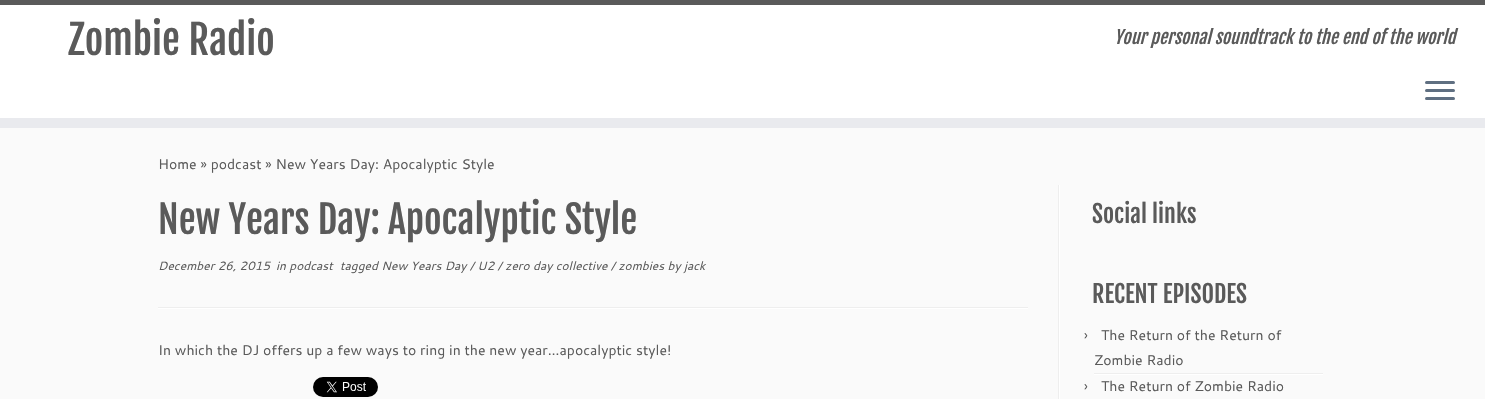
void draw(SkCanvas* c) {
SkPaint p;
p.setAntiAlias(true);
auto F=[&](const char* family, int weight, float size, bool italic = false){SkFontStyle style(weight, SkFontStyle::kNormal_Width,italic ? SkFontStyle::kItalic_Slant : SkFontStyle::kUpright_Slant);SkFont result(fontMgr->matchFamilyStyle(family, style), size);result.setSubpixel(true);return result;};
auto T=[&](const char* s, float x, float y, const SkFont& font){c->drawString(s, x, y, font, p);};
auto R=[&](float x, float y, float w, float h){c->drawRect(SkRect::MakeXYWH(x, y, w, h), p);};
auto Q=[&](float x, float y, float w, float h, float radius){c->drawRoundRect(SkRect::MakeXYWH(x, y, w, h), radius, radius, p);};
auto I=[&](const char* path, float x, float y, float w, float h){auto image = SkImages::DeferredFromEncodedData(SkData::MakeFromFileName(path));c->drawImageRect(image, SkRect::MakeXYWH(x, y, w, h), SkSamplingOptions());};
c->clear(0xfffafafa);
p.setColor(0xffffffff);
R(0,5,1485,113);
p.setColor(0xff5a5a5a);
R(0,0,1485,5);
p.setColor(0xffe9eaee);
R(0,118,1485,10);
auto f1 = F("Fjalla One",400,40);
p.setColor(0xff5a5a5a);
T("Zombie Radio",68,55,f1);
auto f2 = F("Fjalla One",400,18,true);
T("Your personal soundtrack to the end of the world",1114,44,f2);
p.setColor(0xff5f6f81);
Q(1425,81,30,3,1.5);
Q(1425,89,30,3,1.5);
Q(1425,97,30,3,1.5);
auto f3 = F("Cantarell",400,14);
p.setColor(0xff5a5a5a);
T("Home » podcast » New Years Day: Apocalyptic Style",158,169,f3);
auto f4 = F("Fjalla One",400,38);
T("New Years Day: Apocalyptic Style",158,234,f4);
auto f5 = F("Cantarell",400,12,true);
T("December 26, 2015",158,270,f5);
T("in podcast",276,270,f5);
T("tagged New Years Day / U2 / zero day collective / zombies by jack",340,270,f5);
p.setColor(0xffeeeeee);
R(158,307,870,1);
p.setColor(0xffffffff);
R(158,308,870,1);
p.setColor(0xff5a5a5a);
T("In which the DJ offers up a few ways to ring in the new year…apocalyptic style!",158,355,f3);
I("1.png",313,377,65,20);
p.setColor(0xffeeeeee);
R(1058,185,1,214);
p.setColor(0xffffffff);
R(1059,185,1,214);
auto f6 = F("Fjalla One",400,24);
p.setColor(0xff5a5a5a);
T("Social links",1092,223,f6);
T("RECENT EPISODES",1092,303,f6);
p.setColor(0xffeeeeee);
R(1094,373,229,1);
p.setColor(0xff5a5a5a);
T("›",1084,340,f3);
T("The Return of the Return of",1101,340,f3);
T("Zombie Radio",1094,365,f3);
p.setColor(0xffffffff);
R(1094,374,229,1);
p.setColor(0xff5a5a5a);
T("›",1084,391,f3);
T("The Return of Zombie Radio",1101,391,f3);
}
